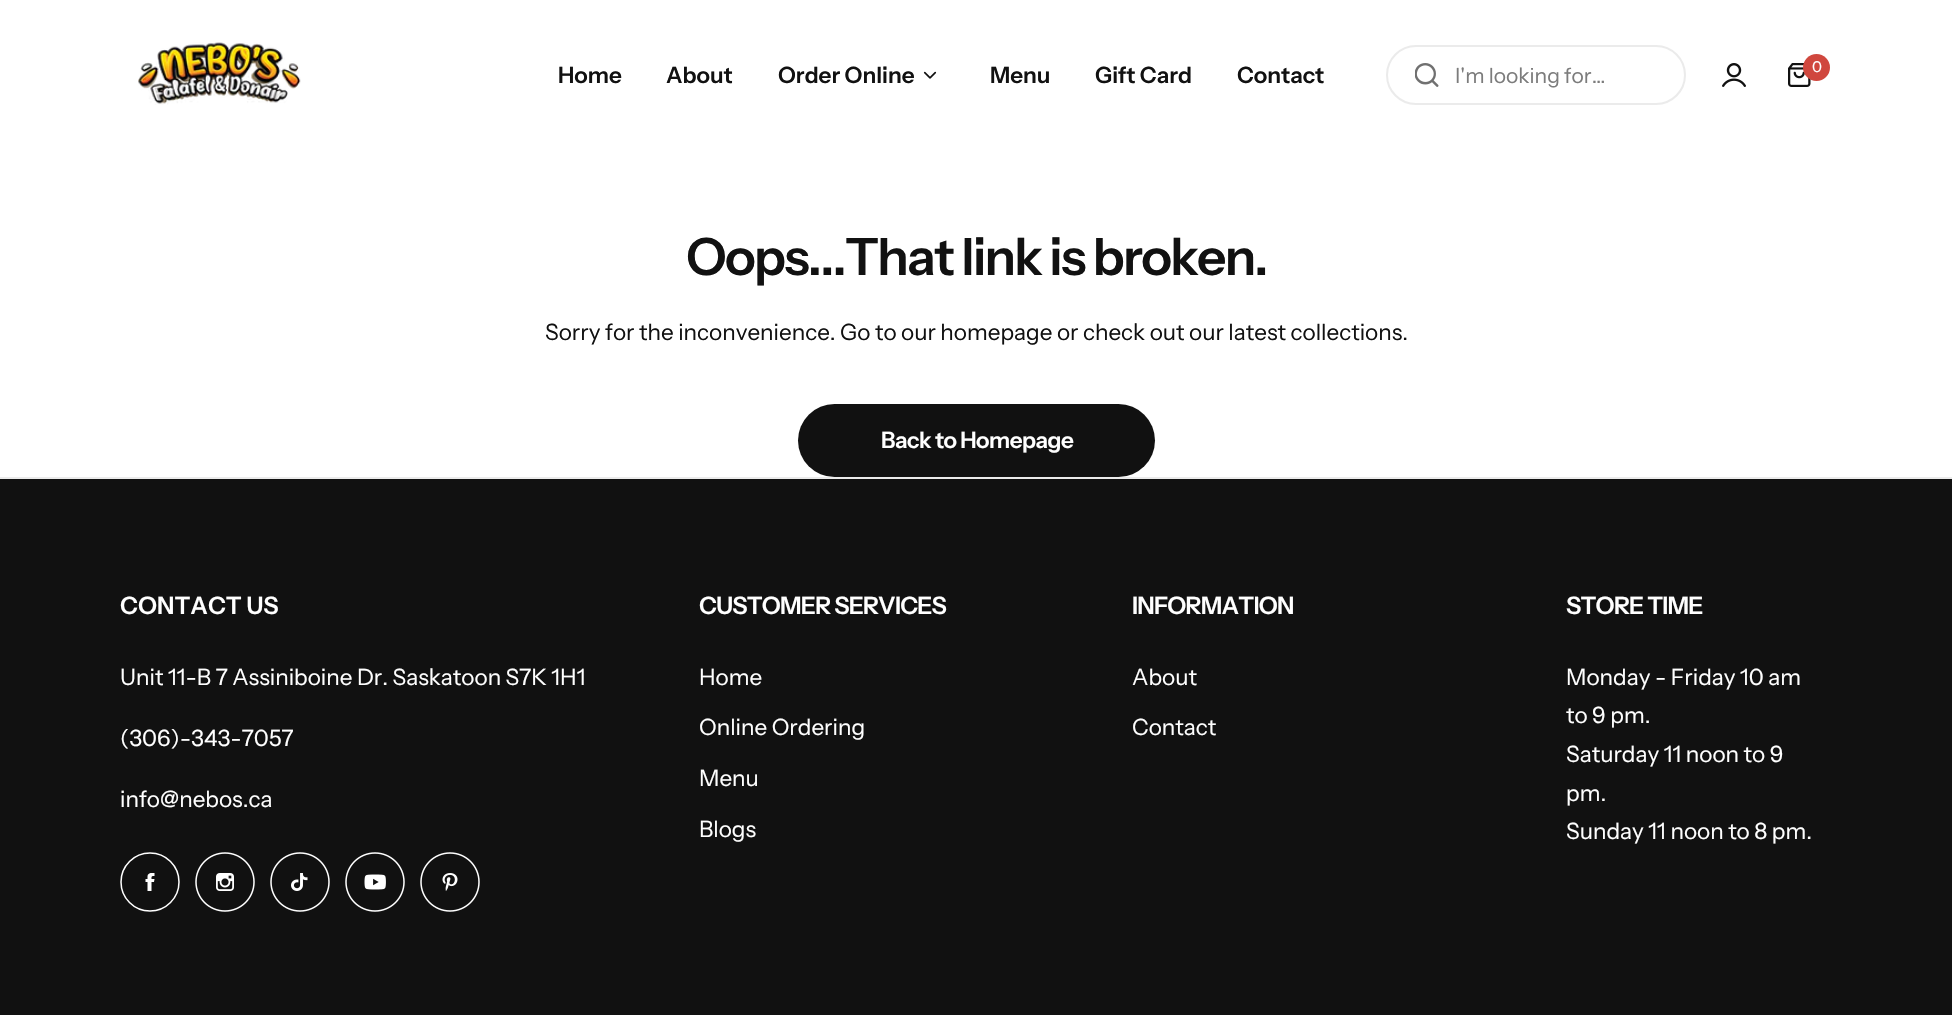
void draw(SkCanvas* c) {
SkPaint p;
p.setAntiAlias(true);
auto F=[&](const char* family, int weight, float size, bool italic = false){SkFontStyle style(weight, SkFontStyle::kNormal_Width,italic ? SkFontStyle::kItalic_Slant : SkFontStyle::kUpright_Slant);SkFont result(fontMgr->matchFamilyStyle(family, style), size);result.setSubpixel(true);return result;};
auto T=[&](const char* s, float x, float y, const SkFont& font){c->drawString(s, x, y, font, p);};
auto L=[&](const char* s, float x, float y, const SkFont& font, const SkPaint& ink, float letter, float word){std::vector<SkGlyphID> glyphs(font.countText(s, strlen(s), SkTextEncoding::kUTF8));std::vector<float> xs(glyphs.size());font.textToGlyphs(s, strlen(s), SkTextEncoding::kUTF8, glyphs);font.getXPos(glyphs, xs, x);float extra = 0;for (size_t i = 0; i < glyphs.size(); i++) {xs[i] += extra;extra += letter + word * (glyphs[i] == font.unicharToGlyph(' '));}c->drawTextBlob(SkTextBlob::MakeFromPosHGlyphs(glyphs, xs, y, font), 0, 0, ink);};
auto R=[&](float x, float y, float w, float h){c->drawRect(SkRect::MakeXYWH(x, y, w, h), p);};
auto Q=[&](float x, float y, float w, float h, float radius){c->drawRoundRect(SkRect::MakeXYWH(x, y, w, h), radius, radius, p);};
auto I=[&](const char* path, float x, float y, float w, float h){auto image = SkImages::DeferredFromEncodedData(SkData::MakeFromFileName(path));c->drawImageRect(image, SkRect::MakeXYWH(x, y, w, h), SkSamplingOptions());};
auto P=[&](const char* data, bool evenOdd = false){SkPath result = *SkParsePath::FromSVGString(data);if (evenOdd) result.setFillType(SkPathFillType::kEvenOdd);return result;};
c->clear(0xffffffff);
I("1.png",138,42,163,63);
auto f1 = F("Instrument Sans",600,22.5);
p.setColor(0xff111111);
T("Home",558,83,f1);
T("About",666,83,f1);
T("Order Online",778,83,f1);
I("2.png",923,71,14,8);
T("Menu",990,83,f1);
T("Gift Card",1095,83,f1);
T("Contact",1237,83,f1);
p.setStroke(true);
p.setStrokeWidth(2);
p.setColor(0xffebebeb);
c->drawRoundRect(SkRect::MakeXYWH(1387,46,298,58),29,29,p);
I("3.png",1415,63,24,24);
auto f2 = F("Instrument Sans",400,21);
p.setStroke(false);
p.setColor(0xff7c7c7c);
T("I'm looking for…",1455,83,f2);
I("4.png",1722,63,24,24);
I("5.png",1788,63,23,24);
p.setColor(0xffd0473e);
c->drawCircle(1816.5,67.5,13.5,p);
auto f3 = F("Instrument Sans",400,15);
p.setColor(0xffffffff);
T("0",1812,72,f3);
auto f4 = F("Instrument Sans",600,51.4);
p.setColor(0xff111111);
L("Oops...That link is broken.",686,275,f4,p,-1.75,0);
auto f5 = F("Instrument Sans",400,22.5);
T("Sorry for the inconvenience. Go to our homepage or check out our latest collections.",545,340,f5);
Q(798,404,357,73,36.5);
p.setColor(0xffffffff);
L("Back to Homepage",881,448,f1,p,-.5,0);
p.setColor(0xff111111);
R(0,479,1952,536);
p.setColor(0xffebebeb);
R(0,477,1952,2);
auto f6 = F("Instrument Sans",600,24);
p.setColor(0xffffffff);
T("CONTACT US",120,614,f6);
T("Unit 11-B 7 Assiniboine Dr. Saskatoon S7K 1H1",120,685,f5);
T("(306)-343-7057",120,746,f5);
T("info@nebos.ca",120,807,f5);
p.setStroke(true);
p.setStrokeWidth(1.5);
c->drawCircle(150,882,29,p);
p.setStroke(false);
c->drawPath(P("M147.5 877v2h-2v3h2v9h4v-9h2.5l.5-3h-3c0-3 0-3 3-3v-3c-3.5 0-7-.5-7 4z"),p);
I("6.png",195,852,60,60);
I("7.png",270,852,60,60);
I("8.png",345,852,60,60);
I("9.png",420,852,60,60);
L("CUSTOMER SERVICES",699,614,f6,p,-.8,0);
T("Home",699,685,f5);
T("Online Ordering",699,735,f5);
T("Menu",699,786,f5);
T("Blogs",699,837,f5);
L("INFORMATION",1132,614,f6,p,-.8,0);
T("About",1132,685,f5);
T("Contact",1132,735,f5);
L("STORE TIME",1566,614,f6,p,-.8,0);
T("Monday - Friday 10 am",1566,685,f5);
T("to 9 pm.",1566,723,f5);
T("Saturday 11 noon to 9",1566,762,f5);
T("pm.",1566,801,f5);
T("Sunday 11 noon to 8 pm.",1566,839,f5);
}
